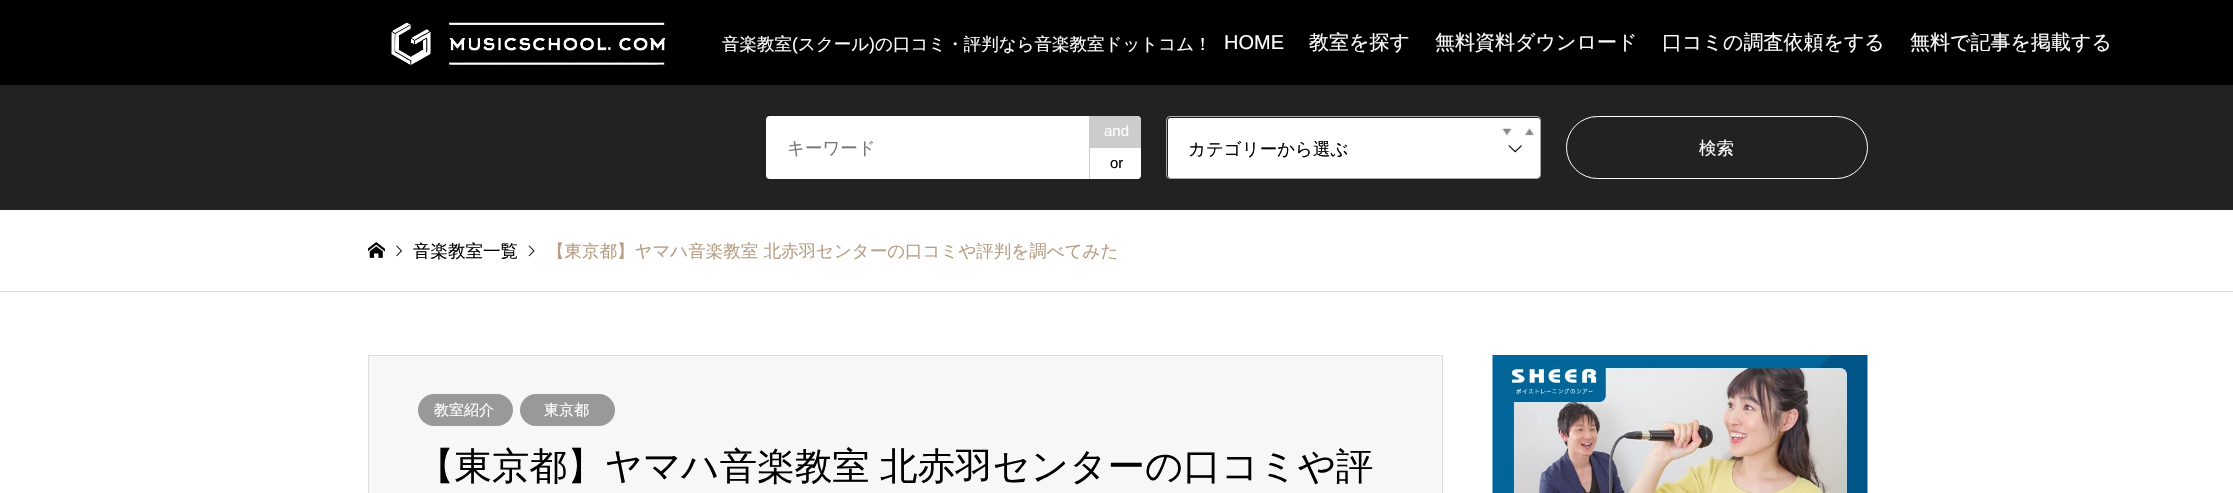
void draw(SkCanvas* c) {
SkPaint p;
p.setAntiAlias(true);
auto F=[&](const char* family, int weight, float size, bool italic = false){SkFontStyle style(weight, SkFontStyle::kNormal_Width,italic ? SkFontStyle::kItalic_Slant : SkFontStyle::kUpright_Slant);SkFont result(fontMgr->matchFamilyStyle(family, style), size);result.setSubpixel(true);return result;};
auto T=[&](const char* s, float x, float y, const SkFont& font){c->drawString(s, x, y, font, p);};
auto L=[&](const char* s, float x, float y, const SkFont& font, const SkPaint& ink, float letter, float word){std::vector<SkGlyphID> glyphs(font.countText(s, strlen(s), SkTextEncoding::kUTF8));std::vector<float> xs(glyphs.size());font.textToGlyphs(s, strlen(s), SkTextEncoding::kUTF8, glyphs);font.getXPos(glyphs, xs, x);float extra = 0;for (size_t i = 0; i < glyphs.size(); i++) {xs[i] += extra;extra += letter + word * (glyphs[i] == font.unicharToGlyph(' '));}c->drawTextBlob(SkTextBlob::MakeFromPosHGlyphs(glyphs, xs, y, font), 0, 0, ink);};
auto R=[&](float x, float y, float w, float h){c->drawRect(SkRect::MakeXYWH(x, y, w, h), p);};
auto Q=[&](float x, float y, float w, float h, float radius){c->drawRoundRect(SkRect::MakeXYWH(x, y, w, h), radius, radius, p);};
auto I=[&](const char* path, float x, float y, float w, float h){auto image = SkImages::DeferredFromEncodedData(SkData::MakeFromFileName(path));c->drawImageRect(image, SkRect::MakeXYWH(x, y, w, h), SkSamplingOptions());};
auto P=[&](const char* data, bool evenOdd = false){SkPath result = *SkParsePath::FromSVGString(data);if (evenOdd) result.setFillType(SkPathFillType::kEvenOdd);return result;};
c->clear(0xffffffff);
p.setColor(0xff000000);
R(0,0,2233,85);
I("1.png",391,22,275,43);
auto f1 = F("WenQuanYi Zen Hei",500,17.5);
p.setColor(0xffffffff);
T("音楽教室",722,50,f1);
auto f2 = F("Liberation Sans",400,17.5);
T("(",792,50,f2);
T("スクール",798,50,f1);
T(")",869,50,f2);
T("の口コミ・評判なら音楽教室ドットコム！",875,50,f1);
auto f3 = F("Liberation Sans",400,20);
T("HOME",1224,49,f3);
auto f4 = F("WenQuanYi Zen Hei",500,20);
T("教室を探す",1309,49,f4);
T("無料資料ダウンロード",1435,49,f4);
T("口コミの調査依頼をする",1662,49,f4);
T("無料で記事を掲載する",1910,49,f4);
p.setColor(0xff222222);
R(0,85,2233,125);
p.setColor(0xffffffff);
Q(766,116,375,63,4);
p.setColor(0xff757575);
T("キーワード",787,154,f1);
p.setColor(0xffcccccc);
c->drawPath(P("M1089 116h48c2 0 4 2 4 4v28h-52z"),p);
auto f5 = F("Liberation Sans",400,15);
p.setColor(0xffffffff);
T("and",1104,136,f5);
c->drawPath(P("M1089 148h52v27c0 2-2 4-4 4h-48z"),p);
p.setColor(0xffcccccc);
R(1089,148,1,31);
p.setColor(0xff000000);
T("or",1110,168,f5);
p.setColor(0xffffffff);
Q(1168,118,372,60,2.5);
p.setStroke(true);
p.setStrokeWidth(1);
p.setColor(0xffaaaaaa);
c->drawRoundRect(SkRect::MakeXYWH(1166.5,116.5,374,62),3.5,3.5,p);
p.setStroke(false);
p.setColor(0xff000000);
T("カテゴリーから選ぶ",1188,155,f1);
I("2.png",1502,128,32,8);
I("3.png",1508,145,14,8);
p.setStroke(true);
p.setColor(0xffffffff);
c->drawRoundRect(SkRect::MakeXYWH(1566.5,116.5,301,62),31,31,p);
p.setStroke(false);
T("検索",1699,154,f1);
p.setColor(0xffdddddd);
R(0,291,2233,1);
I("4.png",368,242,17,16);
I("5.png",396,245,6,12);
p.setColor(0xff000000);
T("音楽教室一覧",413,257,f1);
I("6.png",528,245,7,12);
p.setColor(0xffb69e84);
T("【東京都】ヤマハ音楽教室 北赤羽センターの口コミや評判を調べてみた",547,257,f1);
p.setColor(0xfff7f7f7);
c->drawRect(SkRect::MakeXYWH(368.5,355.5,1074,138),p);
p.setStroke(true);
p.setColor(0xffdddddd);
c->drawRect(SkRect::MakeXYWH(368.5,355.5,1074,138),p);
p.setStroke(false);
p.setColor(0xff999999);
Q(418,394,95,32,16);
auto f6 = F("WenQuanYi Zen Hei",500,15);
p.setColor(0xffffffff);
T("教室紹介",434,415,f6);
p.setColor(0xff999999);
Q(520,394,95,32,16);
p.setColor(0xffffffff);
T("東京都",544,415,f6);
auto f7 = F("WenQuanYi Zen Hei",500,37.5);
p.setColor(0xff000000);
L("【東京都】ヤマハ音楽教室 北赤羽センターの口コミや評",417,479,f7,p,0,-1);
I("7.png",1492,355,376,138);
}
